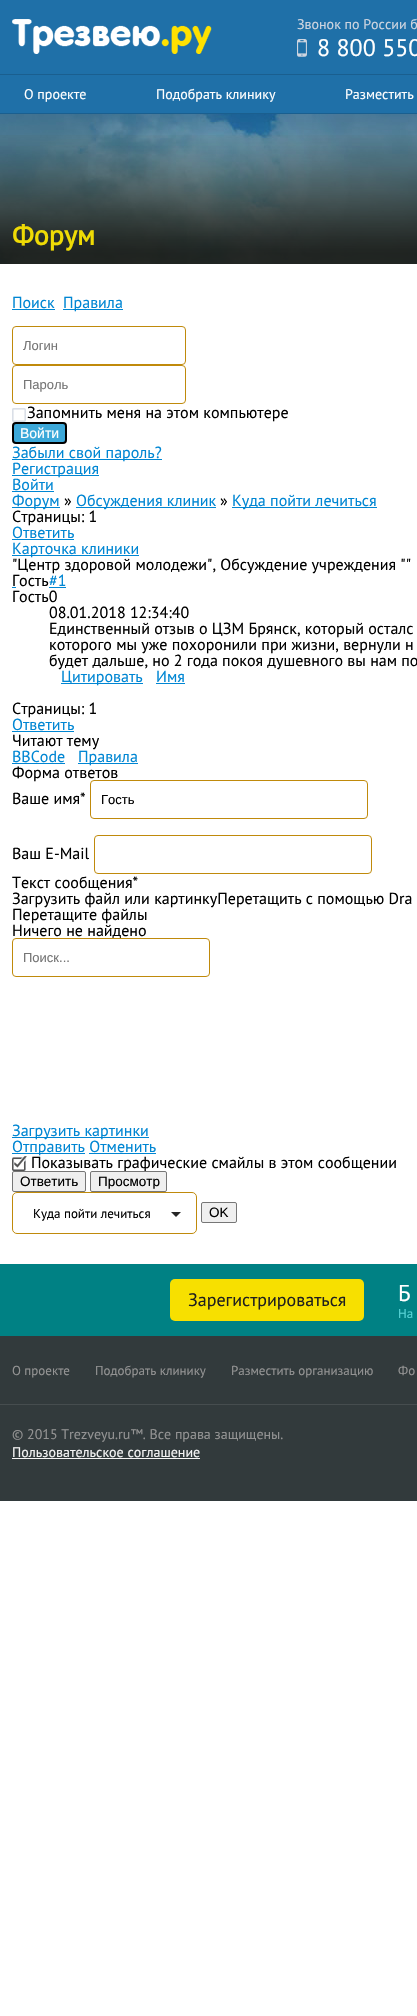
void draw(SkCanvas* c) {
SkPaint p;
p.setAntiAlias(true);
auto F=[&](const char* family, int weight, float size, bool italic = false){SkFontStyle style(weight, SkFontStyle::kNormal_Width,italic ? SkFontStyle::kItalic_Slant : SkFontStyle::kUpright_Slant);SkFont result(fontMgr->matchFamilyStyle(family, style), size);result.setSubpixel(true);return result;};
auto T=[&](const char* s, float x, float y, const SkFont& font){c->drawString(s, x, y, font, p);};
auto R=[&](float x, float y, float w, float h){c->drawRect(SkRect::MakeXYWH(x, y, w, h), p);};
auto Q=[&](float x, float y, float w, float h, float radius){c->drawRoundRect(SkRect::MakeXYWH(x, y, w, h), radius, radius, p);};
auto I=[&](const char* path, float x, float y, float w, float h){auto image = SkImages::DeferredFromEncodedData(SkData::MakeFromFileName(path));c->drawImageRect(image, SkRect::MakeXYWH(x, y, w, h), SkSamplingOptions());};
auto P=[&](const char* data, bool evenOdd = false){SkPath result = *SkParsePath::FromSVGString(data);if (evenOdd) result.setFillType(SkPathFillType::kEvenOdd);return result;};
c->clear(0xffffffff);
p.setColor(0xff1f70a8);
R(0,0,417,113);
p.setColor(0xff1a5f8f);
R(0,113,417,1);
R(0,74,417,1);
I("1.png",12,19,200,35);
auto f1 = F("PT Sans",400,14);
p.setColor(0xffced5e0);
T("Звонок по России б",297,29,f1);
I("2.png",297,39,10,18);
auto f2 = F("PT Sans",400,24);
p.setColor(0xffffffff);
T("8 800 550",317,56,f2);
T("О проекте",24,99,f1);
T("Подобрать клинику",156,99,f1);
T("Разместить",345,99,f1);
I("3.png",0,114,417,150);
I("4.png",0,135,417,129);
auto f3 = F("PT Sans",700,28);
p.setColor(0xffefdb05);
T("Форум",12,245,f3);
auto f4 = F("PT Sans",400,16);
p.setColor(0xff0086d3);
T("Поиск",12,308,f4);
R(12,309,43,1);
R(63,309,60,1);
T("Правила",63,308,f4);
p.setStroke(true);
p.setStrokeWidth(1);
p.setColor(0xffc08a0b);
c->drawRoundRect(SkRect::MakeXYWH(12.5,326.5,173,38),3.5,3.5,p);
auto f5 = F("Liberation Sans",400,13);
p.setStroke(false);
p.setColor(0xff757575);
T("Логин",23,350,f5);
p.setStroke(true);
p.setColor(0xffc08a0b);
c->drawRoundRect(SkRect::MakeXYWH(12.5,365.5,173,38),3.5,3.5,p);
p.setStroke(false);
p.setColor(0xff757575);
T("Пароль",23,389,f5);
I("5.png",12,408,14,14);
p.setColor(0xff000000);
T("Запомнить меня на этом компьютере",27,418,f4);
p.setColor(0xff3ca8d9);
c->drawRoundRect(SkRect::MakeXYWH(13,423,53,20),3,3,p);
p.setStroke(true);
p.setStrokeWidth(2);
p.setColor(0xff000000);
c->drawRoundRect(SkRect::MakeXYWH(13,423,53,20),3,3,p);
auto f6 = F("Liberation Sans",400,14);
p.setStroke(false);
p.setColor(0xffffffff);
T("Войти",20,438,f6);
p.setColor(0xff0086d3);
R(12,459,150,1);
T("Забыли свой пароль?",12,458,f4);
R(12,475,87,1);
T("Регистрация",12,474,f4);
T("Войти",12,490,f4);
R(12,491,42,1);
R(12,507,48,1);
T("Форум",12,506,f4);
p.setColor(0xff000000);
T("»",64,506,f4);
p.setColor(0xff0086d3);
R(76,507,140,1);
T("Обсуждения клиник",76,506,f4);
p.setColor(0xff000000);
T("»",220,506,f4);
p.setColor(0xff0086d3);
R(232,507,145,1);
T("Куда пойти лечиться",232,506,f4);
p.setColor(0xff000000);
T("Страницы: 1",12,522,f4);
p.setColor(0xff0086d3);
T("Ответить",12,538,f4);
R(12,539,62,1);
R(12,555,127,1);
T("Карточка клиники",12,554,f4);
p.setColor(0xff000000);
T("\"Центр здоровой молодежи\", Обсуждение учреждения \"\"",12,570,f4);
T("Гость",12,586,f4);
T("Гость0",12,602,f4);
p.setColor(0xff0086d3);
R(12,587,4,1);
T("#1",49,586,f4);
R(49,587,17,1);
p.setColor(0xff000000);
T("08.01.2018 12:34:40",49,618,f4);
T("Единственный отзыв о ЦЗМ Брянск, который осталс",49,634,f4);
T("которого мы уже похоронили при жизни, вернули н",49,650,f4);
T("будет дальше, но 2 года покоя душевного вы нам по",49,666,f4);
p.setColor(0xff0086d3);
R(61,683,82,1);
T("Цитировать",61,682,f4);
T("Имя",156,682,f4);
R(156,683,29,1);
p.setColor(0xff000000);
T("Страницы: 1",12,714,f4);
p.setColor(0xff0086d3);
T("Ответить",12,730,f4);
R(12,731,62,1);
p.setColor(0xff000000);
T("Читают тему",12,746,f4);
p.setColor(0xff0086d3);
T("BBCode",12,762,f4);
R(12,763,53,1);
R(78,763,60,1);
T("Правила",78,762,f4);
p.setColor(0xff000000);
T("Форма ответов",12,778,f4);
T("Ваше имя*",12,804,f4);
p.setStroke(true);
p.setStrokeWidth(1);
p.setColor(0xffc08a0b);
c->drawRoundRect(SkRect::MakeXYWH(90.5,780.5,277,38),3.5,3.5,p);
p.setStroke(false);
p.setColor(0xff000000);
T("Гость",101,804,f5);
T("Ваш E-Mail",12,859,f4);
p.setStroke(true);
p.setColor(0xffc08a0b);
c->drawRoundRect(SkRect::MakeXYWH(94.5,835.5,277,38),3.5,3.5,p);
p.setStroke(false);
p.setColor(0xff000000);
T("Текст сообщения*",12,888,f4);
T("Загрузить файл или картинкуПеретащить с помощью Dra",12,904,f4);
T("Перетащите файлы",12,920,f4);
T("Ничего не найдено",12,936,f4);
p.setStroke(true);
p.setColor(0xffc08a0b);
c->drawRoundRect(SkRect::MakeXYWH(12.5,938.5,197,38),3.5,3.5,p);
p.setStroke(false);
p.setColor(0xff757575);
T("Поиск...",23,962,f5);
p.setColor(0xff0086d3);
R(12,1137,137,1);
T("Загрузить картинки",12,1136,f4);
R(12,1153,73,1);
T("Отправить Отменить",12,1152,f4);
R(89,1153,67,1);
I("5.png",12,1157,14,14);
I("6.png",12,1156,15,15);
p.setColor(0xff000000);
T("Показывать графические смайлы в этом сообщении",31,1168,f4);
p.setColor(0xffefefef);
c->drawRoundRect(SkRect::MakeXYWH(12.5,1171.5,73,20),1.5,1.5,p);
p.setStroke(true);
p.setColor(0xff767676);
c->drawRoundRect(SkRect::MakeXYWH(12.5,1171.5,73,20),1.5,1.5,p);
auto f7 = F("Liberation Sans",400,13.5);
p.setStroke(false);
p.setColor(0xff000000);
T("Ответить",20,1186,f7);
p.setColor(0xffefefef);
c->drawRoundRect(SkRect::MakeXYWH(90.5,1171.5,76,20),1.5,1.5,p);
p.setStroke(true);
p.setColor(0xff767676);
c->drawRoundRect(SkRect::MakeXYWH(90.5,1171.5,76,20),1.5,1.5,p);
p.setStroke(false);
p.setColor(0xff000000);
T("Просмотр",98,1186,f7);
p.setStroke(true);
p.setColor(0xffc08a0b);
c->drawRoundRect(SkRect::MakeXYWH(12.5,1192.5,184,41),4.5,4.5,p);
auto f8 = F("PT Sans",400,13);
p.setStroke(false);
p.setColor(0xff000000);
T("Куда пойти лечиться",33,1218,f8);
p.setColor(0xff262626);
c->drawPath(P("M171 1212h10l-5 5z"),p);
p.setColor(0xffefefef);
c->drawRoundRect(SkRect::MakeXYWH(201.5,1202.5,35,20),1.5,1.5,p);
p.setStroke(true);
p.setColor(0xff767676);
c->drawRoundRect(SkRect::MakeXYWH(201.5,1202.5,35,20),1.5,1.5,p);
p.setStroke(false);
p.setColor(0xff000000);
T("OK",209,1217,f7);
p.setColor(0xff008184);
R(0,1264,417,72);
p.setColor(0xfff7e000);
Q(170,1279,194,42,5);
auto f9 = F("PT Sans",400,18);
p.setColor(0xff1f1f1f);
T("Зарегистрироваться",188,1306,f9);
auto f10 = F("PT Sans",400,23);
p.setColor(0xffffffff);
T("Б",398,1301,f10);
p.setColor(0xff58d4d7);
T("На",398,1318,f8);
p.setColor(0xff323a3c);
R(0,1336,417,165);
p.setColor(0xff464d4f);
R(0,1404,417,1);
p.setColor(0xff939393);
T("О проекте",12,1375,f8);
T("Подобрать клинику",95,1375,f8);
T("Разместить организацию",231,1375,f8);
T("Фо",398,1375,f8);
T("© 2015 Trezveyu.ru™. Все права защищены.",12,1439,f1);
p.setColor(0xfff5f5f5);
T("Пользовательское соглашение",12,1457,f1);
R(12,1458,188,1);
}
